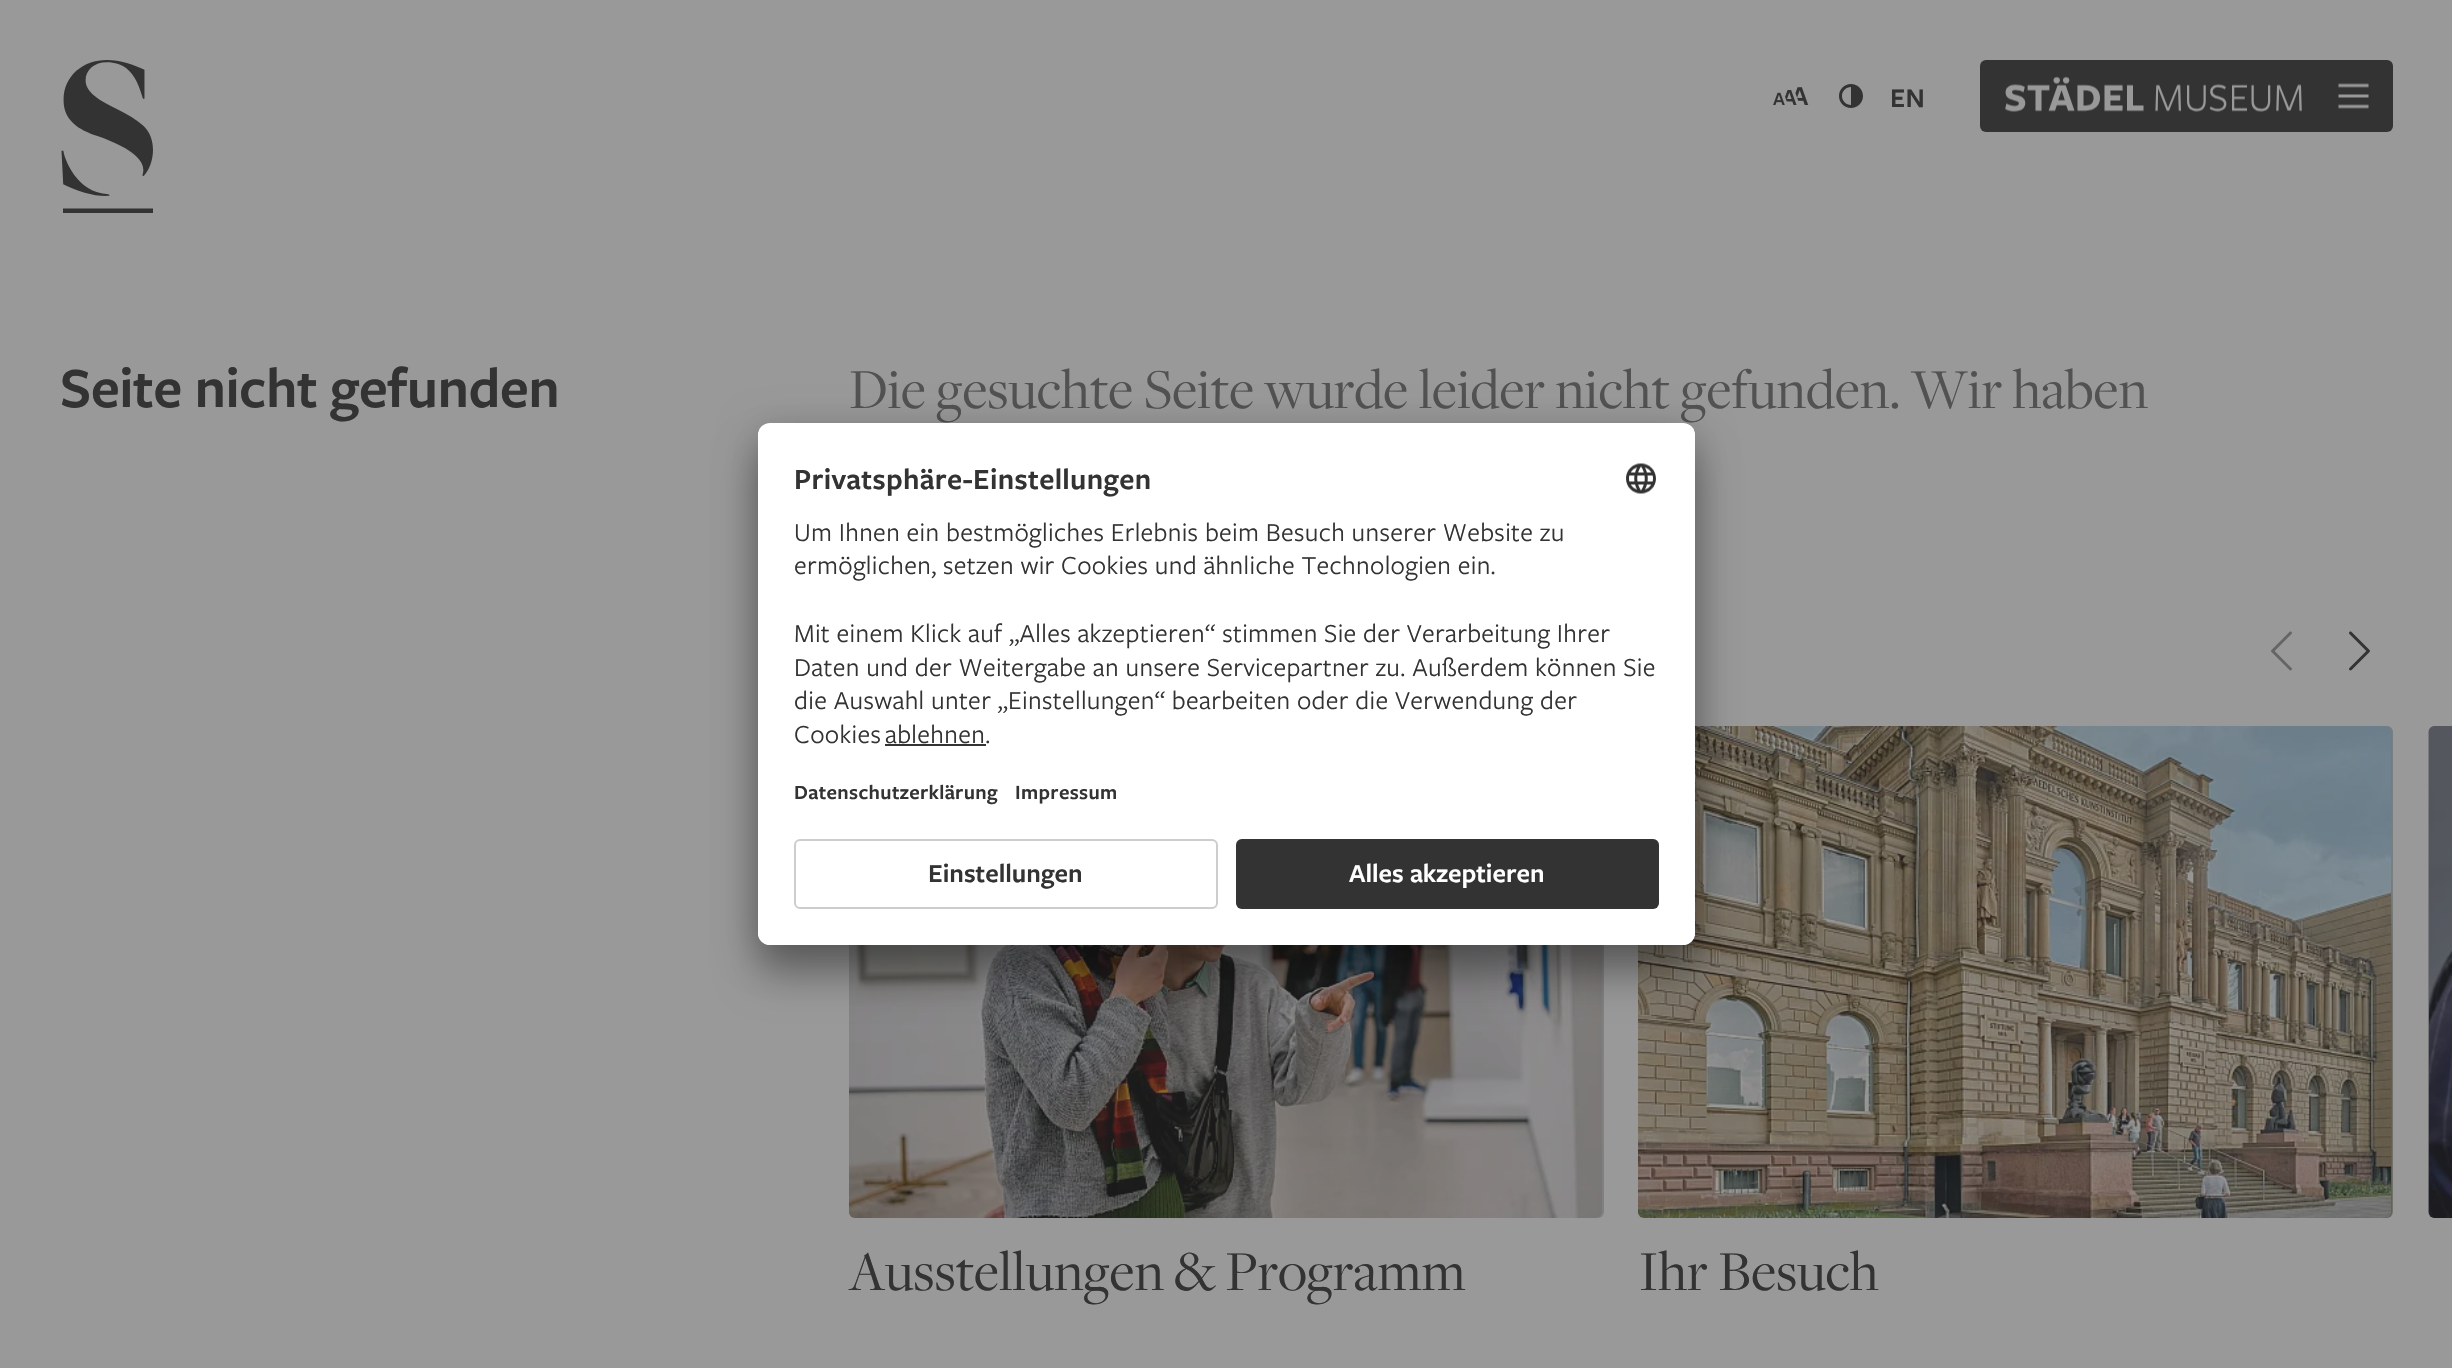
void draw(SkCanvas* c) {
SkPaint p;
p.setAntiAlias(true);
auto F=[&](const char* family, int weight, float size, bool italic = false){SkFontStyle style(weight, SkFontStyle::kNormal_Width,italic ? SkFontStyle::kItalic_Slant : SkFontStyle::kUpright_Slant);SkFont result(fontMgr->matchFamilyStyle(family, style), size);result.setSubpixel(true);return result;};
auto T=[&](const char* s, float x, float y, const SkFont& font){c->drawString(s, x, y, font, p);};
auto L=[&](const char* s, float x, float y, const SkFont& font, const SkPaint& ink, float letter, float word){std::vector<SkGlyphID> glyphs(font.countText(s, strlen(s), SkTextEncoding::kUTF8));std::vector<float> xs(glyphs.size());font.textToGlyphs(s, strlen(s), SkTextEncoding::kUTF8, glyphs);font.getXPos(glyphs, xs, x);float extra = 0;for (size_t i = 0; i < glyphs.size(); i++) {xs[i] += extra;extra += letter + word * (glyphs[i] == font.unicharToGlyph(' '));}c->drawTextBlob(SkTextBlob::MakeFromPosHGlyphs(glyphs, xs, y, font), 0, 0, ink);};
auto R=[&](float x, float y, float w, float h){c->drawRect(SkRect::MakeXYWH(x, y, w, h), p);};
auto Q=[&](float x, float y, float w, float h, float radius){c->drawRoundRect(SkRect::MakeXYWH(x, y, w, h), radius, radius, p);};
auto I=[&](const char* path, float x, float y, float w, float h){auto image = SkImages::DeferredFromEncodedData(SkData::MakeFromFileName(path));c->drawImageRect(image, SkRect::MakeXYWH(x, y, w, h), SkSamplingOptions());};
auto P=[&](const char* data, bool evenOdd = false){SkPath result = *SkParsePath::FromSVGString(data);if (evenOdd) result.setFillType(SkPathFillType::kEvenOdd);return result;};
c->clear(0xff999999);
I("1.png",61,60,92,153);
I("2.png",1773,87,36,18);
I("3.png",1839,84,24,24);
auto f1 = F("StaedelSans",600,28);
p.setColor(0xff333333);
L("EN",1890,107,f1,p,.33,0);
Q(1980,60,413,72,6);
I("4.png",2005,76,297,36);
I("5.png",2338,83,31,26);
auto f2 = F("StaedelSans",600,58.4);
L("Seite nicht gefunden",60,407,f2,p,-.6,0);
auto f3 = F("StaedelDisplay",400,58.4);
p.setColor(0xff525252);
T("Die gesuchte Seite wurde leider nicht gefunden. Wir haben",849,408,f3);
I("6.png",2271,631,21,40);
I("7.png",2349,631,21,40);
I("8.png",2428,726,7,492);
I("9.png",2429,726,23,492);
p.setColor(0xff808080);
Q(849,726,755,492,6);
I("10.png",849,1212,753,6);
I("11.png",849,945,753,273);
p.setColor(0xff333333);
T("Ausstellungen & Programm",849,1290,f3);
p.setColor(0xff808080);
Q(1640,726,753,492,6);
I("12.png",1638,726,755,492);
I("13.png",1638,726,753,492);
p.setColor(0xff333333);
T("Ihr Besuch",1639,1290,f3);
p.setColor(0x4d000000);
p.setMaskFilter(SkMaskFilter::MakeBlur(kNormal_SkBlurStyle, 21));
c->drawRoundRect(SkRect::MakeXYWH(758,453,937,522),12,12,p);
p.setMaskFilter(nullptr);
p.setColor(0x38000000);
p.setMaskFilter(SkMaskFilter::MakeBlur(kNormal_SkBlurStyle, 19.5));
c->drawRoundRect(SkRect::MakeXYWH(758,431,937,522),12,12,p);
p.setMaskFilter(nullptr);
p.setColor(0xffffffff);
Q(758,423,937,522,12);
c->save();
c->clipPath(P("M770 423h913c6.5 0 12 5.5 12 12v498c0 6.5-5.5 12-12 12h-913c-6.5 0-12-5.5-12-12v-498c0-6.5 5.5-12 12-12z"),true);
c->clipPath(P("M770 423h913c6.5 0 12 5.5 12 12v392h-937v-392c0-6.5 5.5-12 12-12z"),true);
R(758,425,937,402);
c->restore();
auto f4 = F("StaedelSans",600,30.4);
p.setColor(0xff333333);
L("Privatsphäre-Einstellungen",794,489,f4,p,.33,0);
I("14.png",1626,463,30,31);
auto f5 = F("StaedelSans",400,27);
L("Um Ihnen ein bestmögliches Erlebnis beim Besuch unserer Website zu",794,541,f5,p,.33,0);
L("ermöglichen, setzen wir Cookies und ähnliche Technologien ein.",794,574,f5,p,.33,0);
L("Mit einem Klick auf „Alles akzeptieren“ stimmen Sie der Verarbeitung Ihrer",794,642,f5,p,.33,0);
L("Daten und der Weitergabe an unsere Servicepartner zu. Außerdem können Sie",794,676,f5,p,.33,0);
L("die Auswahl unter „Einstellungen“ bearbeiten oder die Verwendung der",794,709,f5,p,.33,0);
L("Cookies",794,743,f5,p,.33,0);
L("ablehnen.",885,743,f5,p,.33,0);
R(885,744,101,2);
auto f6 = F("StaedelSans",600,21);
L("Datenschutzerklärung",794,799,f6,p,.33,0);
L("Impressum",1015,799,f6,p,.33,0);
p.setColor(0xffffffff);
c->drawPath(P("M758 827h937v106c0 6.5-5.5 12-12 12h-913c-6.5 0-12-5.5-12-12z"),p);
p.setStroke(true);
p.setStrokeWidth(2);
p.setColor(0xffcdcdcd);
c->drawRoundRect(SkRect::MakeXYWH(795,840,422,68),5,5,p);
auto f7 = F("StaedelSans",600,27);
p.setStroke(false);
p.setColor(0xff333333);
T("Einstellungen",928,882,f7);
Q(1236,839,423,70,6);
p.setStroke(true);
p.setColor(0x40353535);
c->drawRoundRect(SkRect::MakeXYWH(1237,840,421,68),5,5,p);
p.setStroke(false);
p.setColor(0xffffffff);
T("Alles akzeptieren",1349,882,f7);
}
